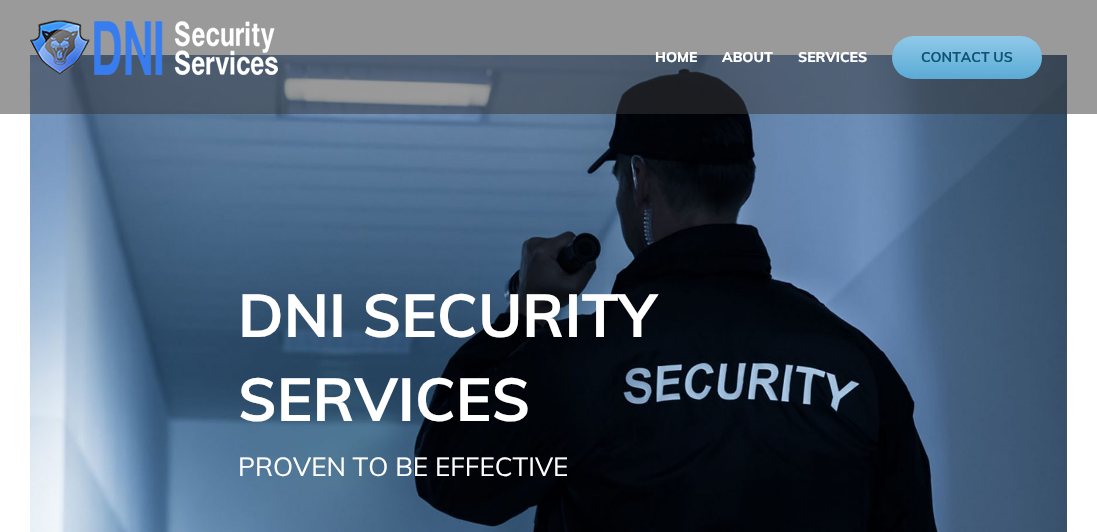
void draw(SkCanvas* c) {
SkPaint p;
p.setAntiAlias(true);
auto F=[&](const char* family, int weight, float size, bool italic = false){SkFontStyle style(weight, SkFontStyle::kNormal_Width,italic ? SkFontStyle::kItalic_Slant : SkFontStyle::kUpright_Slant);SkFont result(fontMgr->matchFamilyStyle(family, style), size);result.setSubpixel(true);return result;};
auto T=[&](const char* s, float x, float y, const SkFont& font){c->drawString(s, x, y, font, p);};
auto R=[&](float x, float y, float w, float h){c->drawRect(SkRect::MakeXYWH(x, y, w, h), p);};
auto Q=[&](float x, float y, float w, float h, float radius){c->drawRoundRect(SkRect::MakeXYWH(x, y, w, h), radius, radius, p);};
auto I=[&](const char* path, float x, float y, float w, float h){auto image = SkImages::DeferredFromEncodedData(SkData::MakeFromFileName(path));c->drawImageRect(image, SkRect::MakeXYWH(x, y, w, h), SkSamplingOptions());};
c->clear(0xffffffff);
I("2.png",30,55,1037,477);
p.setColor(0x80353637);
R(0,0,1097,114);
I("1.png",30,20,248,55);
auto f1 = F("Mulish",800,14);
p.setColor(0xffffffff);
T("HOME",655,62,f1);
T("ABOUT",722,62,f1);
T("SERVICES",798,62,f1);
{
const SkColor colors[] = {0xff5aabd6,0xff90c9e8};
const float stops[] = {0,1};
const SkPoint ends[] = {{967,79}, {967,36}};
p.setShader(SkGradientShader::MakeLinear(ends, colors, stops, 2, SkTileMode::kClamp));
p.setAlpha(255);
}
Q(892,36,150,43,21.5);
auto f2 = F("Mulish",700,14);
p.setShader(nullptr);
p.setColor(0xff105378);
T("CONTACT US",921,62,f2);
auto f3 = F("Mulish",700,60);
p.setColor(0xffffffff);
T("DNI SECURITY",238,337,f3);
T("SERVICES",238,421,f3);
auto f4 = F("Mulish",400,26);
T("PROVEN TO BE EFFECTIVE",238,476,f4);
}
